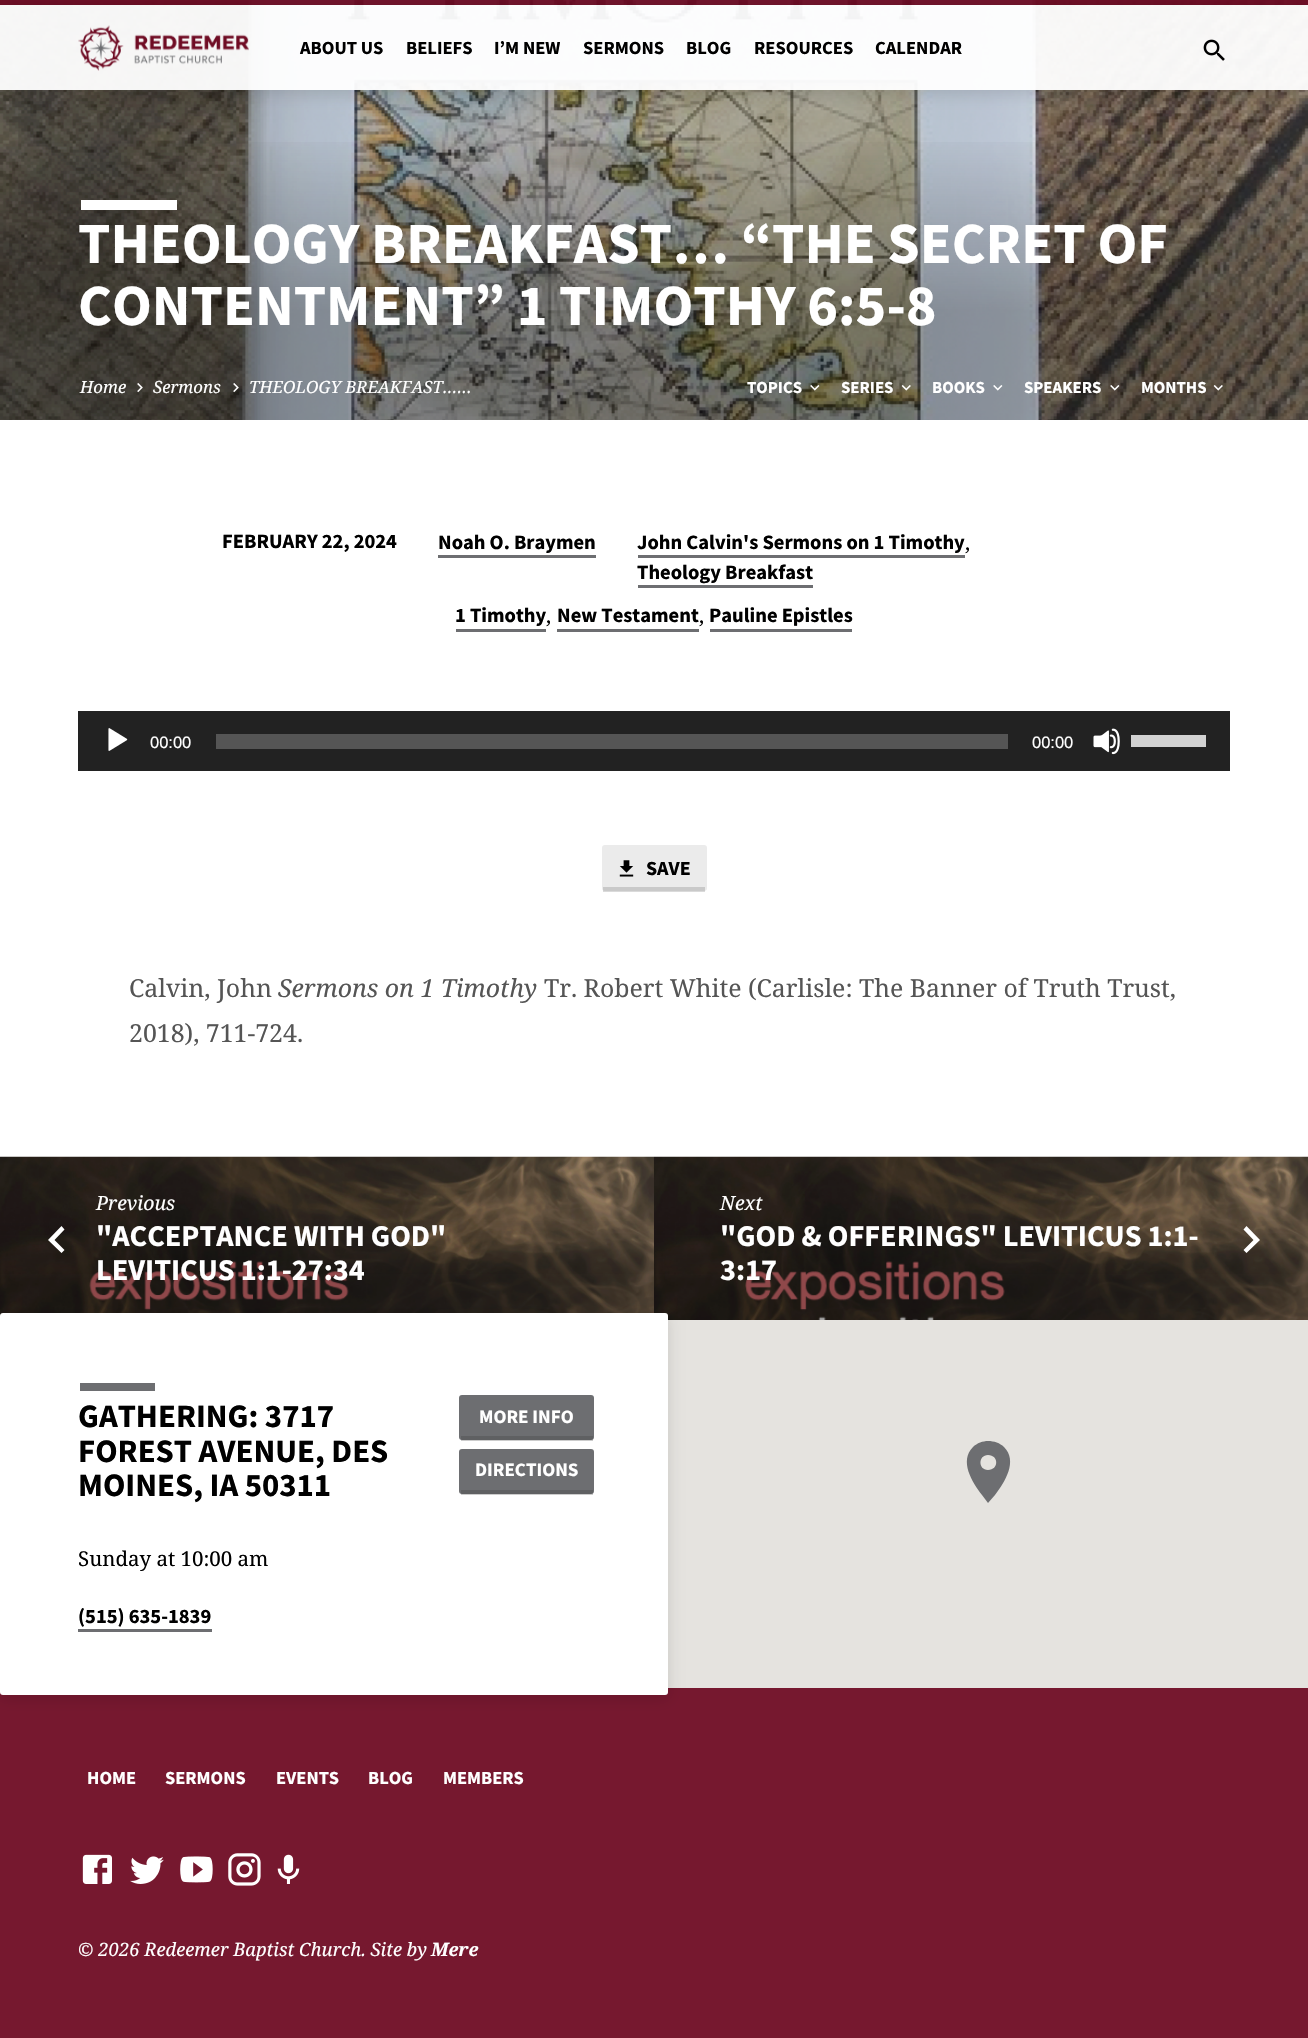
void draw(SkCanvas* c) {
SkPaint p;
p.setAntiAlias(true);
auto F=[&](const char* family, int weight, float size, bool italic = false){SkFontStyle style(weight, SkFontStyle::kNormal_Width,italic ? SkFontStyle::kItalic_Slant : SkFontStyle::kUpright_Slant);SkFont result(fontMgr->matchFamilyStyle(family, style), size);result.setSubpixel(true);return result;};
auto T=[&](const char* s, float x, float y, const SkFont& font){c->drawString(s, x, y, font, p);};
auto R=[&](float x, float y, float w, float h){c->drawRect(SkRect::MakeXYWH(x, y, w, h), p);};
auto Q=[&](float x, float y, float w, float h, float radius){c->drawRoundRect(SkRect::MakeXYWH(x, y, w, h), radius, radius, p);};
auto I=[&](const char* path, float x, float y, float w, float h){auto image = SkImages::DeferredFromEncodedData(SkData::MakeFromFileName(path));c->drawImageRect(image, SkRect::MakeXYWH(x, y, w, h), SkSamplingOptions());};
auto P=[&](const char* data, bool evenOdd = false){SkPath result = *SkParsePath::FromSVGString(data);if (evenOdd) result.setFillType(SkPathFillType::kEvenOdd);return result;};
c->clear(0xffffffff);
I("3.png",0,0,1308,420);
p.setColor(0xf26f0c24);
R(0,0,1308,5);
c->save();
c->clipPath(P("M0 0h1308v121h-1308zm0 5h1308v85h-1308z",true),true);
p.setColor(0x24000000);
p.setMaskFilter(SkMaskFilter::MakeBlur(kNormal_SkBlurStyle, 9));
c->drawRect(SkRect::MakeXYWH(0,8,1308,85),p);
p.setMaskFilter(nullptr);
c->restore();
p.setColor(0xf2ffffff);
R(0,5,1308,85);
I("1.png",78,25,171,46);
auto f1 = F("Source Sans Pro",700,18.5);
p.setColor(0xff000000);
T("ABOUT US",300,54,f1);
T("BELIEFS",406,54,f1);
T("I’M NEW",494,54,f1);
T("SERMONS",583,54,f1);
T("BLOG",686,54,f1);
T("RESOURCES",754,54,f1);
T("CALENDAR",875,54,f1);
I("2.png",1203,39,22,22);
{
const SkColor colors[] = {0x00000000,0x00000000,0x47000000,0x47000000};
const float stops[] = {0,.36,.76,1};
const SkPoint ends[] = {{654,-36}, {654,420}};
p.setShader(SkGradientShader::MakeLinear(ends, colors, stops, 4, SkTileMode::kClamp));
p.setAlpha(255);
}
R(0,142,1308,278);
p.setShader(nullptr);
p.setColor(0xffffffff);
R(81,200,96,10);
auto f2 = F("Source Sans Pro",700,58.3);
T("THEOLOGY BREAKFAST… “THE SECRET OF",78,263,f2);
T("CONTENTMENT” 1 TIMOTHY 6:5-8",78,325,f2);
auto f3 = F("Noto Serif",400,16.8,true);
T("Home",80,393,f3);
I("4.png",137,383,6,10);
T("Sermons",153,393,f3);
I("5.png",233,383,6,10);
T("THEOLOGY BREAKFAST……",249,393,f3);
auto f4 = F("Source Sans Pro",700,16.8);
T("TOPICS",747,393,f4);
I("6.png",810,385,10,6);
T("SERIES",841,393,f4);
I("7.png",901,385,10,6);
T("BOOKS",932,393,f4);
I("8.png",993,385,10,6);
T("SPEAKERS",1024,393,f4);
I("9.png",1110,385,10,6);
T("MONTHS",1141,393,f4);
I("10.png",1213,385,10,6);
auto f5 = F("Source Sans Pro",700,20.5);
p.setColor(0xff000000);
T("FEBRUARY 22, 2024",222,548,f5);
T("Noah O. Braymen",438,549,f5);
p.setColor(0xff6d6e71);
R(438,555,158,3);
p.setColor(0xff000000);
T("John Calvin's Sermons on 1 Timothy",637,549,f5);
p.setColor(0xff6d6e71);
R(638,555,327,3);
auto f6 = F("Noto Serif",400,20.5);
p.setColor(0xff000000);
T(",",965,550,f6);
T("Theology Breakfast",637,579,f5);
p.setColor(0xff6d6e71);
R(638,585,175,3);
p.setColor(0xff000000);
T("1 Timothy",455,622,f5);
p.setColor(0xff6d6e71);
R(456,629,90,3);
p.setColor(0xff000000);
T(",",546,623,f6);
T("New Testament",557,622,f5);
p.setColor(0xff6d6e71);
R(557,629,142,3);
p.setColor(0xff000000);
T(",",699,623,f6);
T("Pauline Epistles",709,622,f5);
p.setColor(0xff6d6e71);
R(710,629,142,3);
p.setColor(0xff222222);
R(78,711,1152,60);
I("11.png",108,728,20,23);
auto f7 = F("Liberation Sans",400,16.5);
p.setColor(0xffffffff);
T("00:00",150,748,f7);
p.setColor(0xff555555);
R(216,734,792,15);
p.setColor(0xffffffff);
T("00:00",1032,748,f7);
I("12.png",1093,728,27,27);
p.setColor(0xffd2d2d2);
R(1131,735,75,12);
p.setColor(0xffebebeb);
Q(602,845,105,46,3);
p.setColor(0x2e323232);
R(603,887,102,5);
I("13.png",619,860,15,17);
auto f8 = F("Source Sans Pro",700,20);
p.setColor(0xff000000);
T("SAVE",646,875,f8);
auto f9 = F("Noto Serif",400,24.85);
p.setColor(0xff555555);
T("Calvin, John",129,997,f9);
auto f10 = F("Noto Serif",400,24.85,true);
T("Sermons on 1 Timothy",278,997,f10);
T("Tr. Robert White (Carlisle: The Banner of Truth Trust,",544,997,f9);
T("2018), 711-724.",129,1042,f9);
I("14.png",0,1156,654,160);
{
const SkColor colors[] = {0x00060606,0x00060606,0x47060606,0x47060606};
const float stops[] = {0,.36,.76,1};
const SkPoint ends[] = {{329,1157}, {329,1320}};
p.setShader(SkGradientShader::MakeLinear(ends, colors, stops, 4, SkTileMode::kClamp));
p.setAlpha(255);
}
R(0,1221,654,95);
p.setShader(nullptr);
p.setColor(0xffffffff);
c->drawPath(P("M64.5 1250l-10-10l10-10.5l-3-3.5l-13.5 14l13.5 13z"),p);
auto f11 = F("Noto Serif",400,19.5,true);
T("Previous",96,1210,f11);
auto f12 = F("Source Sans Pro",700,30.25);
T("\"ACCEPTANCE WITH GOD\"",96,1246,f12);
T("LEVITICUS 1:1-27:34",96,1280,f12);
I("15.png",654,1156,654,164);
{
const SkColor colors[] = {0x00060606,0x00060606,0x47060606,0x47060606};
const float stops[] = {0,.36,.76,1};
const SkPoint ends[] = {{986,1157}, {986,1320}};
p.setShader(SkGradientShader::MakeLinear(ends, colors, stops, 4, SkTileMode::kClamp));
p.setAlpha(255);
}
R(654,1221,654,99);
p.setShader(nullptr);
p.setColor(0xffffffff);
T("Next",720,1210,f11);
T("\"GOD & OFFERINGS\" LEVITICUS 1:1-",720,1246,f12);
T("3:17",720,1280,f12);
c->drawPath(P("M1243.5 1250l10-10l-10-10.5l3-3.5l13.5 14l-13.5 13z"),p);
p.setColor(0xffe5e3df);
R(668,1320,640,368);
p.setColor(0xff76182f);
R(0,1688,1308,350);
p.setColor(0x1f000000);
p.setMaskFilter(SkMaskFilter::MakeBlur(kNormal_SkBlurStyle, 7.5));
c->drawRoundRect(SkRect::MakeXYWH(0,1316,668,382),3,3,p);
p.setMaskFilter(nullptr);
p.setColor(0xffffffff);
Q(0,1313,668,382,3);
p.setColor(0xff6d6e71);
c->drawPath(P("M988 1470c-10 0-10-15 0-15c11 0 11 15 0 15zm0-29c-5 0-11 2-15 6c-14 14-1 35 9 48l6 8l7-8c10-13 23-34 9-48c-4-4-10-6-16-6z"),p);
R(80,1383,75,8);
auto f13 = F("Source Sans Pro",700,32.75);
p.setColor(0xff000000);
T("GATHERING: 3717",78,1427,f13);
T("FOREST AVENUE, DES",78,1462,f13);
T("MOINES, IA 50311",78,1496,f13);
p.setColor(0xff6d6e71);
Q(459,1395,135,45,3);
p.setColor(0x40323232);
R(461,1436,132,5);
auto f14 = F("Source Sans Pro",700,19);
p.setColor(0xffffffff);
T("MORE INFO",479,1423,f14);
p.setColor(0xff6d6e71);
Q(459,1449,135,45,3);
p.setColor(0x40323232);
R(461,1490,132,5);
p.setColor(0xffffffff);
T("DIRECTIONS",475,1476,f14);
p.setColor(0xff000000);
T("Sunday at 10:00 am",78,1566,f6);
T("(515) 635-1839",78,1623,f5);
p.setColor(0xff6d6e71);
R(78,1629,134,3);
auto f15 = F("Source Sans Pro",700,18.4);
p.setColor(0xffffffff);
T("HOME",87,1784,f15);
T("SERMONS",165,1784,f15);
T("EVENTS",276,1784,f15);
T("BLOG",368,1784,f15);
T("MEMBERS",443,1784,f15);
I("16.png",82,1854,30,30);
I("17.png",130,1856,34,28);
I("18.png",180,1856,33,27);
I("19.png",228,1853,33,33);
I("20.png",277,1854,23,30);
auto f16 = F("Noto Serif",400,18.4,true);
T("© 2026 Redeemer Baptist Church. Site by",78,1956,f16);
auto f17 = F("Noto Serif",700,18.4,true);
T("Mere",431,1956,f17);
}
